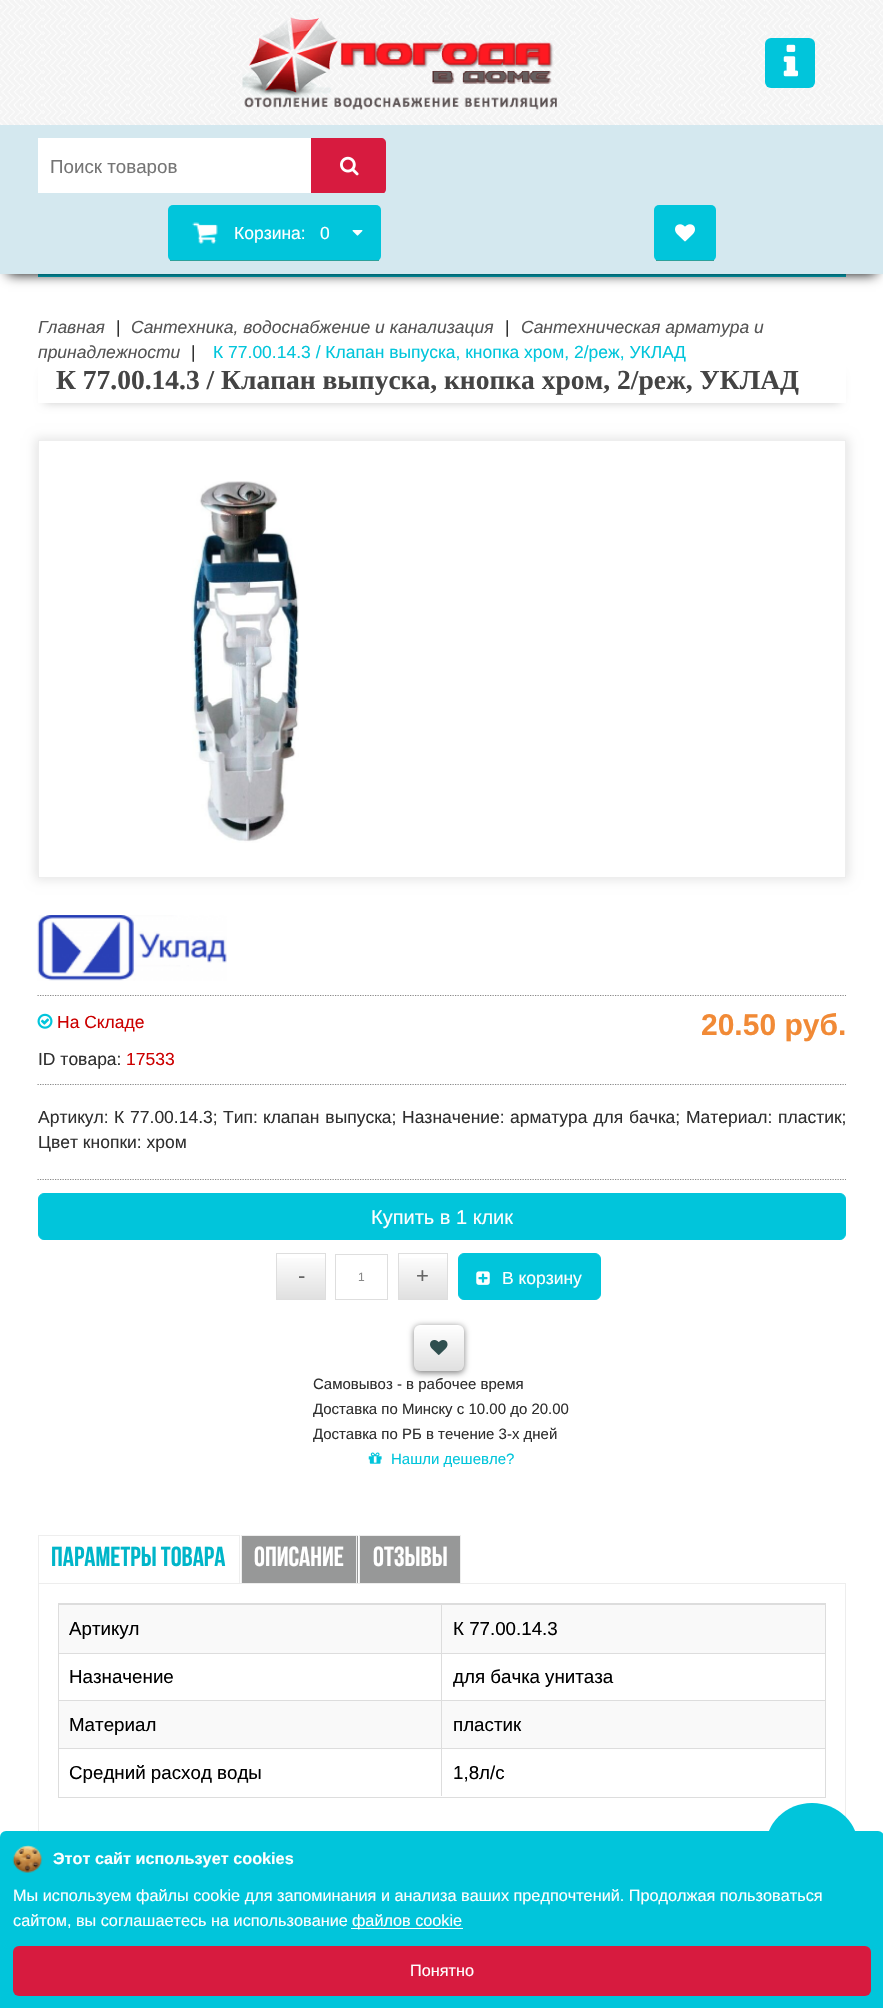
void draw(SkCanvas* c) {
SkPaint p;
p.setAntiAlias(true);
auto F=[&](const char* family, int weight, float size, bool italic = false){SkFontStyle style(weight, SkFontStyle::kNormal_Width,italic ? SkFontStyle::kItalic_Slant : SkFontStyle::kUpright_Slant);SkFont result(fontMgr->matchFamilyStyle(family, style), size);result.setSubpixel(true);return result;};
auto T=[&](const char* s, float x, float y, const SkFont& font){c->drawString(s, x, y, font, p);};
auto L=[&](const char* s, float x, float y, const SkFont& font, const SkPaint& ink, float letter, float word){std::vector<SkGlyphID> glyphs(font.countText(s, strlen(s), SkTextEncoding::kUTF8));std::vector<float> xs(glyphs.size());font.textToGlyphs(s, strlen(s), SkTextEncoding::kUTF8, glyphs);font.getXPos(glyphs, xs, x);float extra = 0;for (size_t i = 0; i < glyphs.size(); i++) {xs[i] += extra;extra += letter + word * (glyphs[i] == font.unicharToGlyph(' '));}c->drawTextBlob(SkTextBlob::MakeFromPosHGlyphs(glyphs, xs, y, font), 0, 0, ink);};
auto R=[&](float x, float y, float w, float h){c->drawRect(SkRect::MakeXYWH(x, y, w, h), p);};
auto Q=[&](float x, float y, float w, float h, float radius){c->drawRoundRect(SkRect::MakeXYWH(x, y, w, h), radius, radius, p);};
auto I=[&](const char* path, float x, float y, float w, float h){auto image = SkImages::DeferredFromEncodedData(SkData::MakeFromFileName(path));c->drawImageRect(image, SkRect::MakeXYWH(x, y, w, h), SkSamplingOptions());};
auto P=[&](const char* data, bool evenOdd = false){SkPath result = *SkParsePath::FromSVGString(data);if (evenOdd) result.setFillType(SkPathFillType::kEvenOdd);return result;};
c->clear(0xffffffff);
I("1.png",0,0,883,125);
I("2.png",242,7,315,103);
p.setColor(0xff01c5db);
Q(765,38,50,50,6);
I("3.png",783,44,16,33);
R(38,274,808,3);
p.setColor(0xff000000);
p.setMaskFilter(SkMaskFilter::MakeBlur(kNormal_SkBlurStyle, 6));
c->drawRect(SkRect::MakeXYWH(8,140,868,134),p);
p.setMaskFilter(nullptr);
p.setColor(0xffd4e8ef);
R(0,125,883,149);
p.setColor(0xffffffff);
R(38,138,273,55);
c->save();
c->clipRect(SkRect::MakeXYWH(50,155,249,21));
auto f1 = F("Liberation Sans",400,18.75);
p.setColor(0xff757575);
T("Поиск товаров",50,173,f1);
c->restore();
c->save();
c->clipRect(SkRect::MakeXYWH(38,138,348,55));
p.setColor(0xffd71b3f);
c->drawPath(P("M311 138h70c3 0 5 2 5 5v46c0 3-2 5-5 5h-70z"),p);
c->restore();
I("4.png",340,156,19,20);
p.setColor(0xff01c5db);
Q(168,205,213,56,5);
I("5.png",192,222,26,22);
p.setColor(0xff2da19b);
R(170,260,209,1);
auto f2 = F("Liberation Sans",400,17.5);
p.setColor(0xffffffff);
T("Корзина:",234,239,f2);
T("0",320,239,f2);
I("6.png",352,230,11,6);
p.setColor(0xff01c5db);
Q(654,205,62,56,5);
p.setColor(0xff2da19b);
R(656,260,58,1);
I("7.png",675,224,20,18);
auto f3 = F("Liberation Sans",400,17.5,true);
p.setColor(0xff555555);
T("Главная",38,333,f3);
p.setColor(0xff2f2f2f);
T("|",116,333,f2);
p.setColor(0xff555555);
T("Сантехника, водоснабжение и канализация",131,333,f3);
p.setColor(0xff2f2f2f);
T("|",505,333,f2);
p.setColor(0xff555555);
T("Сантехническая арматура и",521,333,f3);
T("принадлежности",38,358,f3);
p.setColor(0xff2f2f2f);
T("|",191,358,f2);
p.setColor(0xff01c5db);
T("К 77.00.14.3 / Клапан выпуска, кнопка хром, 2/реж, УКЛАД",213,358,f2);
c->save();
c->clipPath(P("M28 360h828v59h-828zm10 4h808v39h-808z",true),true);
p.setColor(0xffcccccc);
p.setMaskFilter(SkMaskFilter::MakeBlur(kNormal_SkBlurStyle, 5));
c->drawRect(SkRect::MakeXYWH(44,376,796,27),p);
p.setMaskFilter(nullptr);
c->restore();
auto f4 = F("Liberation Serif",700,27.5);
p.setColor(0xff444444);
T("К 77.00.14.3 / Клапан выпуска, кнопка хром, 2/реж, УКЛАД",56,389,f4);
p.setColor(0xffe6e6e6);
p.setMaskFilter(SkMaskFilter::MakeBlur(kNormal_SkBlurStyle, 5));
c->drawRect(SkRect::MakeXYWH(35,438,814,442),p);
p.setMaskFilter(nullptr);
p.setColor(0xffffffff);
c->drawRect(SkRect::MakeXYWH(38.5,440.5,807,437),p);
p.setStroke(true);
p.setStrokeWidth(1);
p.setColor(0xffeeeeee);
c->drawRect(SkRect::MakeXYWH(38.5,440.5,807,437),p);
I("8.png",191,481,108,362);
I("9.png",37,915,190,66);
p.setStrokeWidth(1.2);
p.setColor(0xff888888);
p.setPathEffect(SkDashPathEffect::Make({{1.25f,1.25f}}, 0));
c->drawPath(P("M37.5 995.5h808.5"),p);
p.setPathEffect(nullptr);
I("10.png",37,1013,16,16);
p.setStroke(false);
p.setColor(0xffcc0000);
T("На Складе",57,1028,f2);
p.setColor(0xff2f2f2f);
T("ID товара:",38,1065,f2);
p.setColor(0xffcc0000);
T("17533",126,1065,f2);
auto f5 = F("Liberation Sans",700,30);
p.setColor(0xfff18a36);
T("20.50 руб.",701,1035,f5);
p.setStroke(true);
p.setColor(0xff888888);
p.setPathEffect(SkDashPathEffect::Make({{1.25f,1.25f}}, 0));
c->drawPath(P("M37.5 1084.5h808.5"),p);
p.setPathEffect(nullptr);
p.setStroke(false);
p.setColor(0xff2f2f2f);
T("Артикул:",38,1123,f2);
L("К 77.00.14.3;",114,1123,f2,p,0,1);
T("Тип:",223,1123,f2);
L("клапан выпуска;",263,1123,f2,p,0,1);
T("Назначение:",402,1123,f2);
L("арматура для бачка;",510,1123,f2,p,0,1);
T("Материал:",686,1123,f2);
T("пластик;",778,1123,f2);
T("Цвет кнопки: хром",38,1148,f2);
p.setStroke(true);
p.setColor(0xff888888);
p.setPathEffect(SkDashPathEffect::Make({{1.25f,1.25f}}, 0));
c->drawPath(P("M37.5 1179.5h808.5"),p);
p.setPathEffect(nullptr);
p.setStroke(false);
p.setColor(0xff01c5db);
c->drawRoundRect(SkRect::MakeXYWH(38.5,1193.5,807,46),5.5,5.5,p);
p.setStroke(true);
p.setStrokeWidth(1);
c->drawRoundRect(SkRect::MakeXYWH(38.5,1193.5,807,46),5.5,5.5,p);
auto f6 = F("Liberation Sans",400,20);
p.setStroke(false);
p.setColor(0xffffffff);
T("Купить в 1 клик",371,1224,f6);
{
const SkColor colors[] = {0xffffffff,0xffe0e0e0};
const float stops[] = {0,1};
const SkPoint ends[] = {{301,1254}, {301,1299}};
p.setShader(SkGradientShader::MakeLinear(ends, colors, stops, 2, SkTileMode::kClamp));
p.setAlpha(255);
}
R(277,1258,48,41);
p.setStroke(true);
p.setShader(nullptr);
p.setColor(0xffdedede);
c->drawRect(SkRect::MakeXYWH(276.5,1253.5,49,46),p);
auto f7 = F("Liberation Sans",400,22);
p.setStroke(false);
p.setColor(0xff666666);
T("-",298,1283,f7);
p.setStroke(true);
p.setColor(0xffdedede);
c->drawRect(SkRect::MakeXYWH(335.5,1254.5,52,45),p);
auto f8 = F("Liberation Sans",400,12);
p.setStroke(false);
p.setColor(0xff888888);
T("1",358,1281,f8);
{
const SkColor colors[] = {0xffffffff,0xffe0e0e0};
const float stops[] = {0,1};
const SkPoint ends[] = {{423,1254}, {423,1299}};
p.setShader(SkGradientShader::MakeLinear(ends, colors, stops, 2, SkTileMode::kClamp));
p.setAlpha(255);
}
R(399,1258,48,41);
p.setStroke(true);
p.setShader(nullptr);
p.setColor(0xffdedede);
c->drawRect(SkRect::MakeXYWH(398.5,1253.5,49,46),p);
p.setStroke(false);
p.setColor(0xff666666);
T("+",416,1283,f7);
p.setColor(0xff01c5db);
c->drawRoundRect(SkRect::MakeXYWH(458.5,1253.5,142,46),5.5,5.5,p);
p.setStroke(true);
c->drawRoundRect(SkRect::MakeXYWH(458.5,1253.5,142,46),5.5,5.5,p);
I("11.png",476,1271,14,14);
p.setStroke(false);
p.setColor(0xffffffff);
T("В корзину",502,1284,f2);
p.setColor(0xff808080);
p.setMaskFilter(SkMaskFilter::MakeBlur(kNormal_SkBlurStyle, 3));
c->drawRoundRect(SkRect::MakeXYWH(414,1326,50,47),6,6,p);
p.setMaskFilter(nullptr);
{
const SkColor colors[] = {0xffffffff,0xffe0e0e0};
const float stops[] = {0,1};
const SkPoint ends[] = {{439,1325}, {439,1371}};
p.setShader(SkGradientShader::MakeLinear(ends, colors, stops, 2, SkTileMode::kClamp));
p.setAlpha(255);
}
Q(414,1325,50,46,6);
I("12.png",430,1340,18,15);
auto f9 = F("Liberation Sans",400,15);
p.setShader(nullptr);
p.setColor(0xff2f2f2f);
T("Самовывоз - в рабочее время",313,1389,f9);
T("Доставка по Минску с 10.00 до 20.00",313,1414,f9);
T("Доставка по РБ в течение 3-х дней",313,1439,f9);
I("13.png",368,1452,14,12);
p.setColor(0xff01c5db);
T("Нашли дешевле?",391,1464,f9);
p.setColor(0xffeeeeee);
R(38,1535,202,1);
R(239,1535,1,48);
R(38,1535,1,48);
auto f10 = F("Bebas Neue",700,27.5);
p.setColor(0xff00b5c9);
T("ПАРАМЕТРЫ ТОВАРА",51,1566,f10);
p.setColor(0xff979898);
R(242,1536,116,47);
p.setColor(0xffeeeeee);
R(241,1535,117,1);
R(356,1535,1,48);
R(241,1535,1,48);
p.setColor(0xffffffff);
T("ОПИСАНИЕ",254,1566,f10);
p.setColor(0xff979898);
R(360,1536,100,47);
p.setColor(0xffeeeeee);
R(359,1535,102,1);
R(460,1535,1,48);
R(359,1535,1,48);
p.setColor(0xffffffff);
T("ОТЗЫВЫ",373,1566,f10);
p.setStroke(true);
p.setColor(0xffededed);
c->drawRect(SkRect::MakeXYWH(38.5,1583.5,807,252),p);
p.setColor(0xffdddddd);
c->drawRect(SkRect::MakeXYWH(58.5,1603.5,767,194),p);
p.setStroke(false);
p.setColor(0xfff9f9f9);
R(59,1605,766,48);
p.setColor(0xffdddddd);
R(441,1604,384,1);
R(441,1653,384,1);
R(441,1700,384,1);
p.setColor(0xfff9f9f9);
R(59,1701,766,47);
p.setColor(0xffdddddd);
R(441,1748,384,1);
R(441,1748,1,48);
R(59,1748,384,1);
R(441,1700,1,49);
R(59,1700,384,1);
R(441,1653,1,48);
R(59,1653,384,1);
R(441,1604,1,50);
R(59,1604,384,1);
p.setColor(0xff000000);
T("Артикул",69,1635,f1);
T("К 77.00.14.3",453,1635,f1);
T("Назначение",69,1683,f1);
T("для бачка унитаза",453,1683,f1);
T("Материал",69,1731,f1);
T("пластик",453,1731,f1);
T("Средний расход воды",69,1779,f1);
T("1,8л/с",453,1779,f1);
p.setColor(0xff01c5db);
Q(765,1803,94,93,46.5);
R(0,2003,883,5);
Q(0,1831,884,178,6);
I("14.png",12,1845,31,28);
auto f11 = F("Liberation Sans",700,16.25);
p.setColor(0xffffffff);
T("Этот сайт использует cookies",53,1864,f11);
auto f12 = F("Liberation Sans",400,16.25);
T("Мы используем файлы cookie для запоминания и анализа ваших предпочтений. Продолжая пользоваться",13,1901,f12);
T("сайтом, вы соглашаетесь на использование",13,1926,f12);
R(351,1928,112,1);
T("файлов cookie",352,1926,f12);
p.setColor(0xffd71b3f);
Q(13,1946,858,50,6);
p.setColor(0xffffffff);
T("Понятно",410,1976,f12);
}
